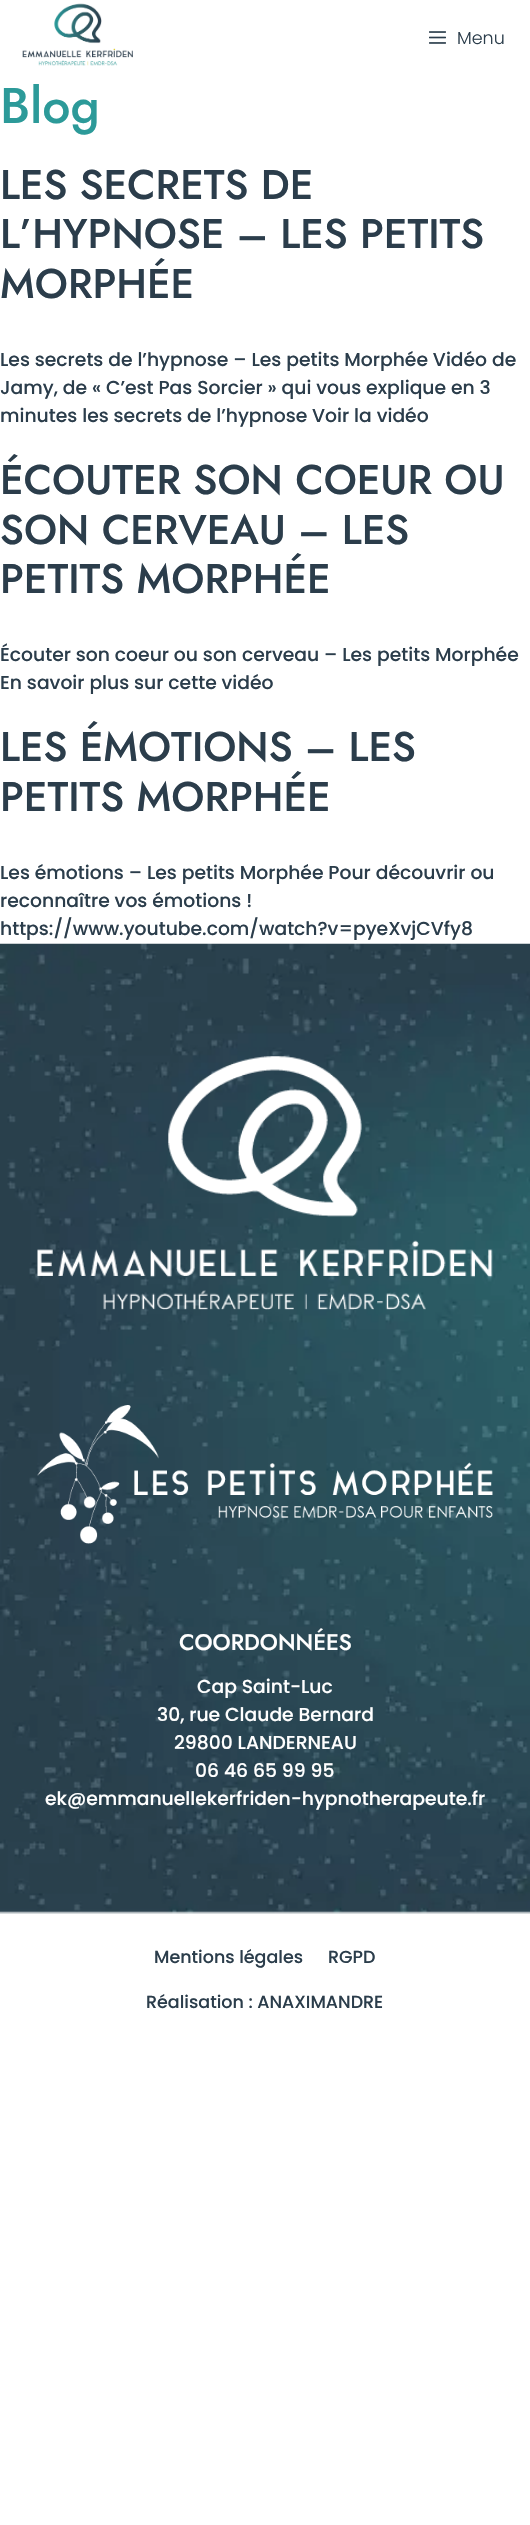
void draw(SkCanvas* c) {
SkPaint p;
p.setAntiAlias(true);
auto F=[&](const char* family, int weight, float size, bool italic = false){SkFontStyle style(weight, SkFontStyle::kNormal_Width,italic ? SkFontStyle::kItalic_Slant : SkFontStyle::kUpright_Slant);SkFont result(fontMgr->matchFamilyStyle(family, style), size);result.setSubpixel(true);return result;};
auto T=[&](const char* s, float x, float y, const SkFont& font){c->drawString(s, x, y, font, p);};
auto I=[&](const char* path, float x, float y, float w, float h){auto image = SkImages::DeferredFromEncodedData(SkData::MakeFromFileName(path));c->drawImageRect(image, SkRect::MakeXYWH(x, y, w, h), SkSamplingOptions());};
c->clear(0xffffffff);
I("1.png",22,3,111,63);
I("2.png",429,31,17,13);
auto f1 = F("Poppins",300,17.5);
p.setColor(0xff2b3d4b);
T("Menu",457,44,f1);
auto f2 = F("Jost",500,50);
p.setColor(0xff2c9a99);
T("Blog",0,123,f2);
auto f3 = F("Jost",500,41.25);
p.setColor(0xff2b3d4b);
T("LES SECRETS DE",0,199,f3);
T("L’HYPNOSE – LES PETITS",0,248,f3);
T("MORPHÉE",0,298,f3);
auto f4 = F("Poppins",500,18.75);
T("Les secrets de l’hypnose – Les petits Morphée Vidéo de",0,366,f4);
T("Jamy, de « C’est Pas Sorcier » qui vous explique en 3",0,394,f4);
T("minutes les secrets de l’hypnose Voir la vidéo",0,422,f4);
T("ÉCOUTER SON COEUR OU",0,494,f3);
T("SON CERVEAU – LES",0,544,f3);
T("PETITS MORPHÉE",0,593,f3);
T("Écouter son coeur ou son cerveau – Les petits Morphée",0,661,f4);
T("En savoir plus sur cette vidéo",0,689,f4);
T("LES ÉMOTIONS – LES",0,761,f3);
T("PETITS MORPHÉE",0,811,f3);
T("Les émotions – Les petits Morphée Pour découvrir ou",0,879,f4);
T("reconnaître vos émotions !",0,907,f4);
T("https://www.youtube.com/watch?v=pyeXvjCVfy8",0,935,f4);
I("3.png",0,943,530,971);
I("4.png",37,1056,456,254);
I("5.png",37,1405,456,139);
auto f5 = F("Jost",500,22.5);
p.setColor(0xffffffff);
T("COORDONNÉES",179,1650,f5);
T("Cap Saint-Luc",197,1693,f4);
T("30, rue Claude Bernard",157,1721,f4);
T("29800 LANDERNEAU",174,1749,f4);
T("06 46 65 99 95",195,1777,f4);
T("ek@emmanuellekerfriden-hypnotherapeute.fr",45,1805,f4);
auto f6 = F("Poppins",500,17.5);
p.setColor(0xff2b3d4b);
T("Mentions légales",154,1963,f6);
T("RGPD",328,1963,f6);
T("Réalisation : ANAXIMANDRE",146,2008,f6);
}
